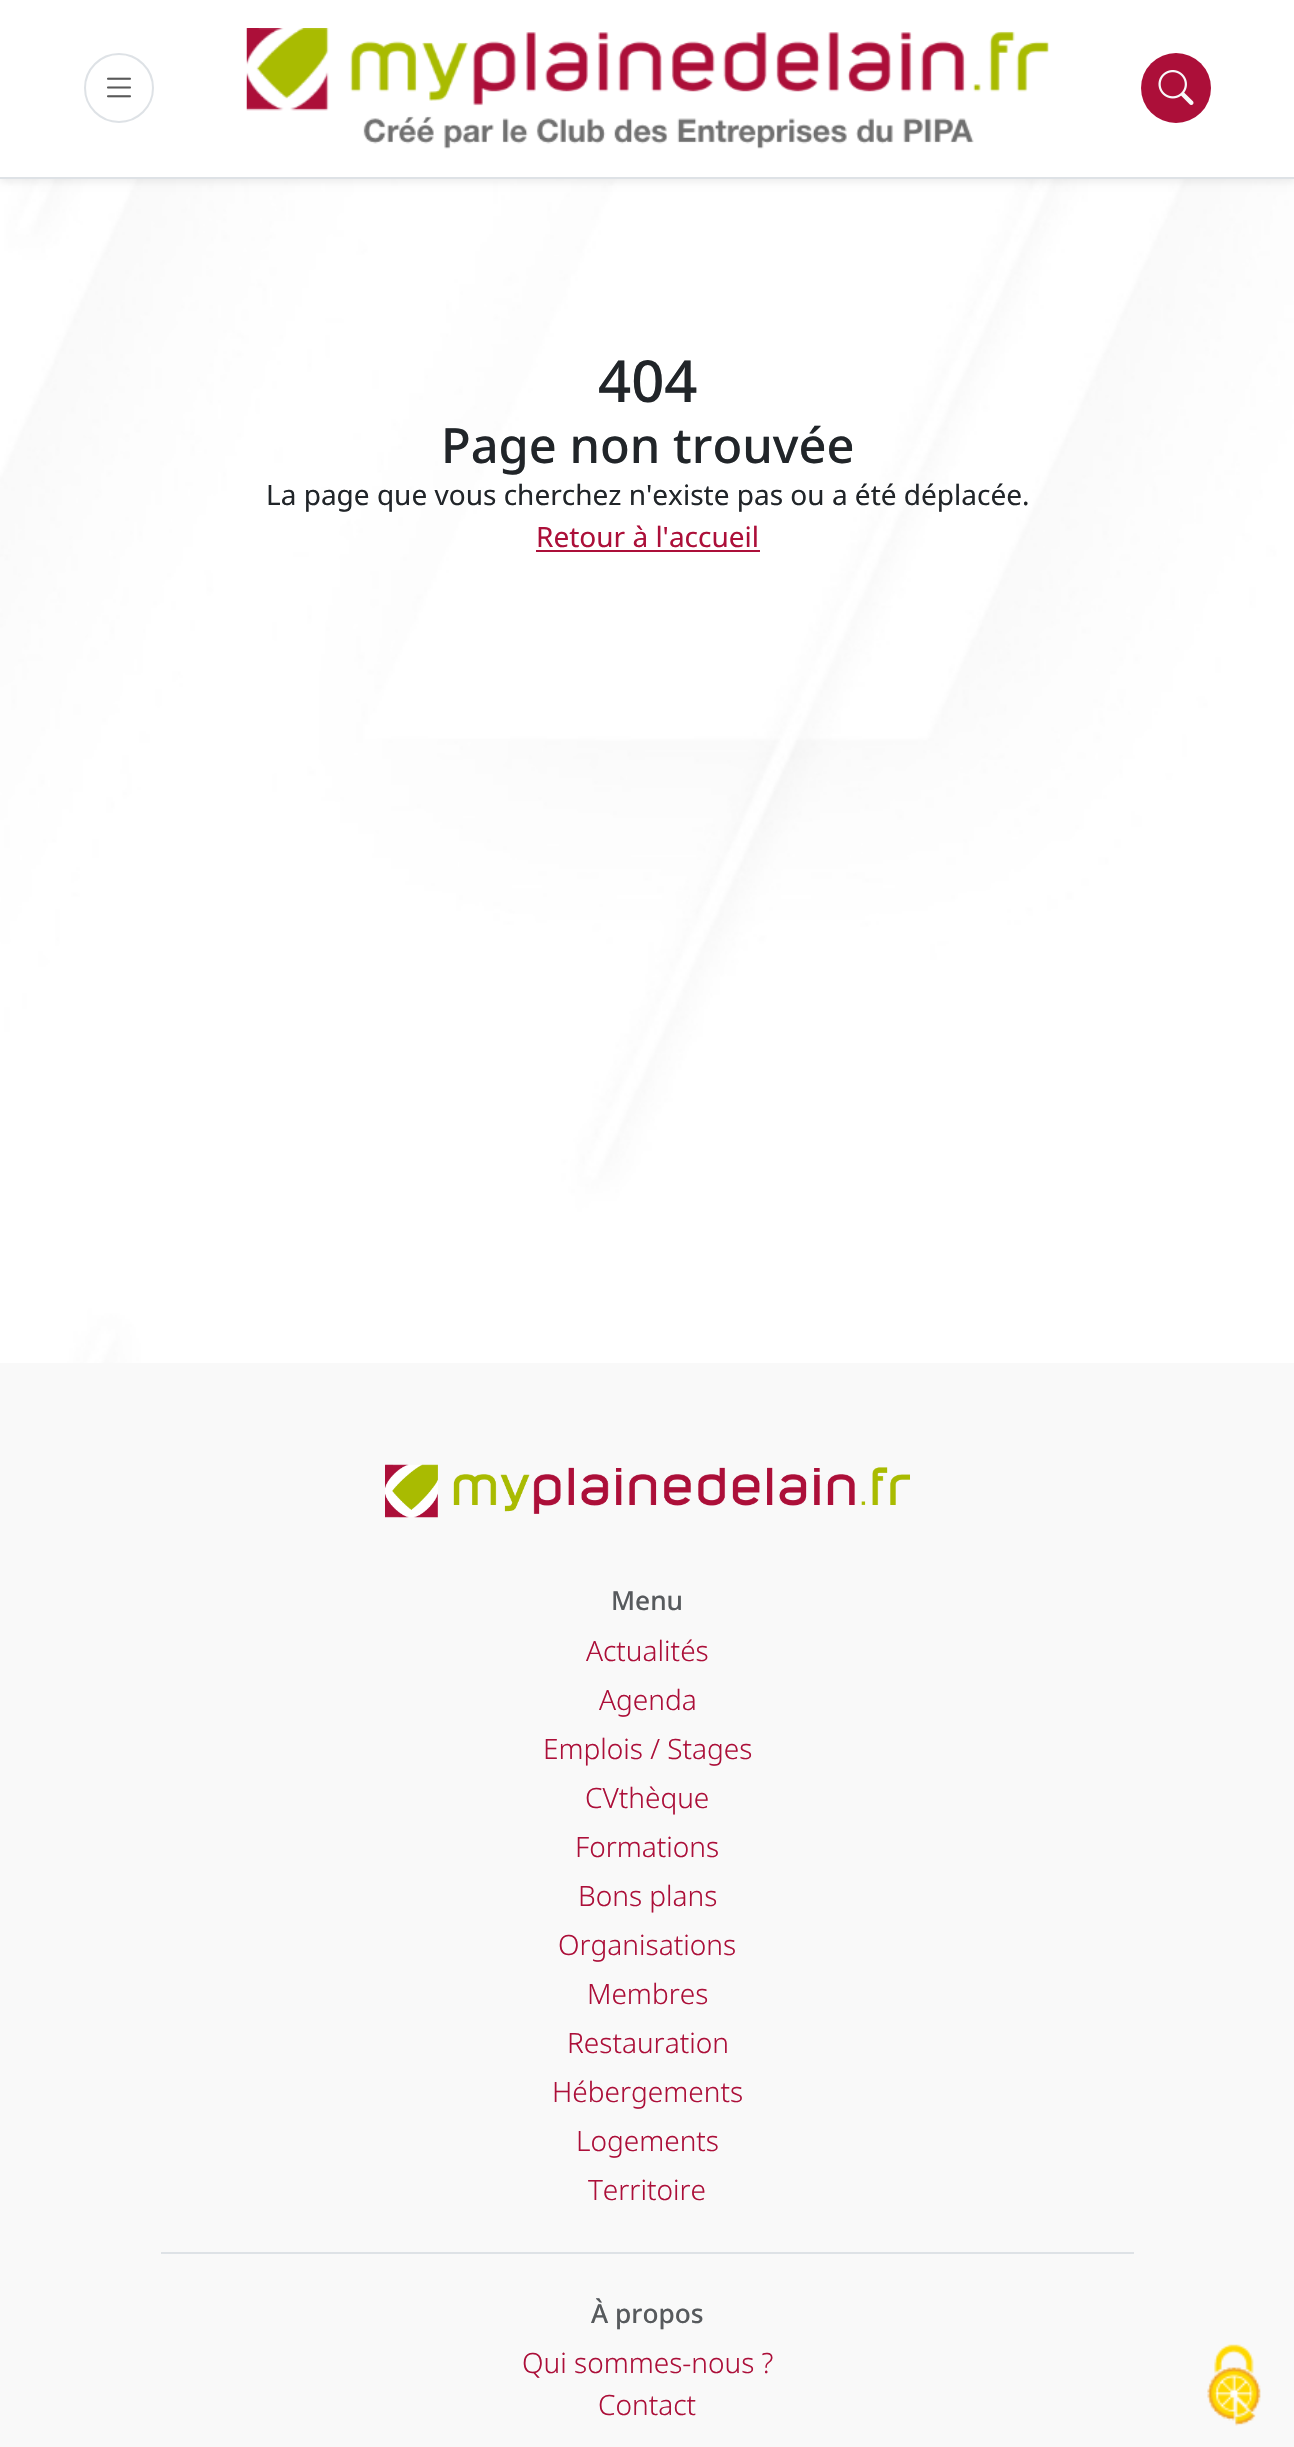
void draw(SkCanvas* c) {
SkPaint p;
p.setAntiAlias(true);
auto F=[&](const char* family, int weight, float size, bool italic = false){SkFontStyle style(weight, SkFontStyle::kNormal_Width,italic ? SkFontStyle::kItalic_Slant : SkFontStyle::kUpright_Slant);SkFont result(fontMgr->matchFamilyStyle(family, style), size);result.setSubpixel(true);return result;};
auto T=[&](const char* s, float x, float y, const SkFont& font){c->drawString(s, x, y, font, p);};
auto R=[&](float x, float y, float w, float h){c->drawRect(SkRect::MakeXYWH(x, y, w, h), p);};
auto I=[&](const char* path, float x, float y, float w, float h){auto image = SkImages::DeferredFromEncodedData(SkData::MakeFromFileName(path));c->drawImageRect(image, SkRect::MakeXYWH(x, y, w, h), SkSamplingOptions());};
c->clear(0xffffffff);
I("1.png",0,179,1294,1184);
p.setColor(0x12000000);
p.setMaskFilter(SkMaskFilter::MakeBlur(kNormal_SkBlurStyle, 3.5));
c->drawRect(SkRect::MakeXYWH(0,4,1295,178),p);
p.setMaskFilter(nullptr);
p.setColor(0xffffffff);
R(0,0,1294,177);
p.setColor(0xffdee2e6);
R(0,177,1294,2);
p.setStroke(true);
p.setStrokeWidth(2);
c->drawCircle(119,88,34,p);
I("2.png",107,77,24,21);
I("3.png",246,28,803,121);
p.setStroke(false);
p.setColor(0xffac0f39);
c->drawCircle(1176,88,35,p);
I("4.png",1158,70,36,35);
auto f1 = F("Noto Sans",500,58);
p.setColor(0xff212529);
T("404",598,402,f1);
auto f2 = F("Noto Sans",500,48.75);
T("Page non trouvée",441,463,f2);
auto f3 = F("Noto Sans",400,28);
T("La page que vous cherchez n'existe pas ou a été déplacée.",266,505,f3);
p.setColor(0xffac0f39);
T("Retour à l'accueil",536,547,f3);
R(536,550,224,2);
p.setColor(0xfff9f9f9);
R(0,1363,1294,1084);
I("5.png",385,1464,525,54);
p.setColor(0xffdee2e6);
R(161,2252,973,2);
auto f4 = F("Noto Sans",500,26.25);
p.setColor(0xff575a5d);
T("Menu",611,1610,f4);
auto f5 = F("Noto Sans",300,28);
p.setColor(0xffac0f39);
T("Actualités",586,1661,f5);
T("Agenda",599,1710,f5);
T("Emplois / Stages",543,1759,f5);
T("CVthèque",585,1808,f5);
T("Formations",575,1857,f5);
T("Bons plans",578,1906,f5);
T("Organisations",558,1955,f5);
T("Membres",587,2004,f5);
T("Restauration",567,2053,f5);
T("Hébergements",552,2102,f5);
T("Logements",576,2151,f5);
T("Territoire",588,2200,f5);
p.setColor(0xff575a5d);
T("À propos",591,2323,f4);
p.setColor(0xffac0f39);
T("Qui sommes-nous ?",522,2373,f5);
T("Contact",598,2415,f5);
I("6.png",1207,2344,54,82);
}
